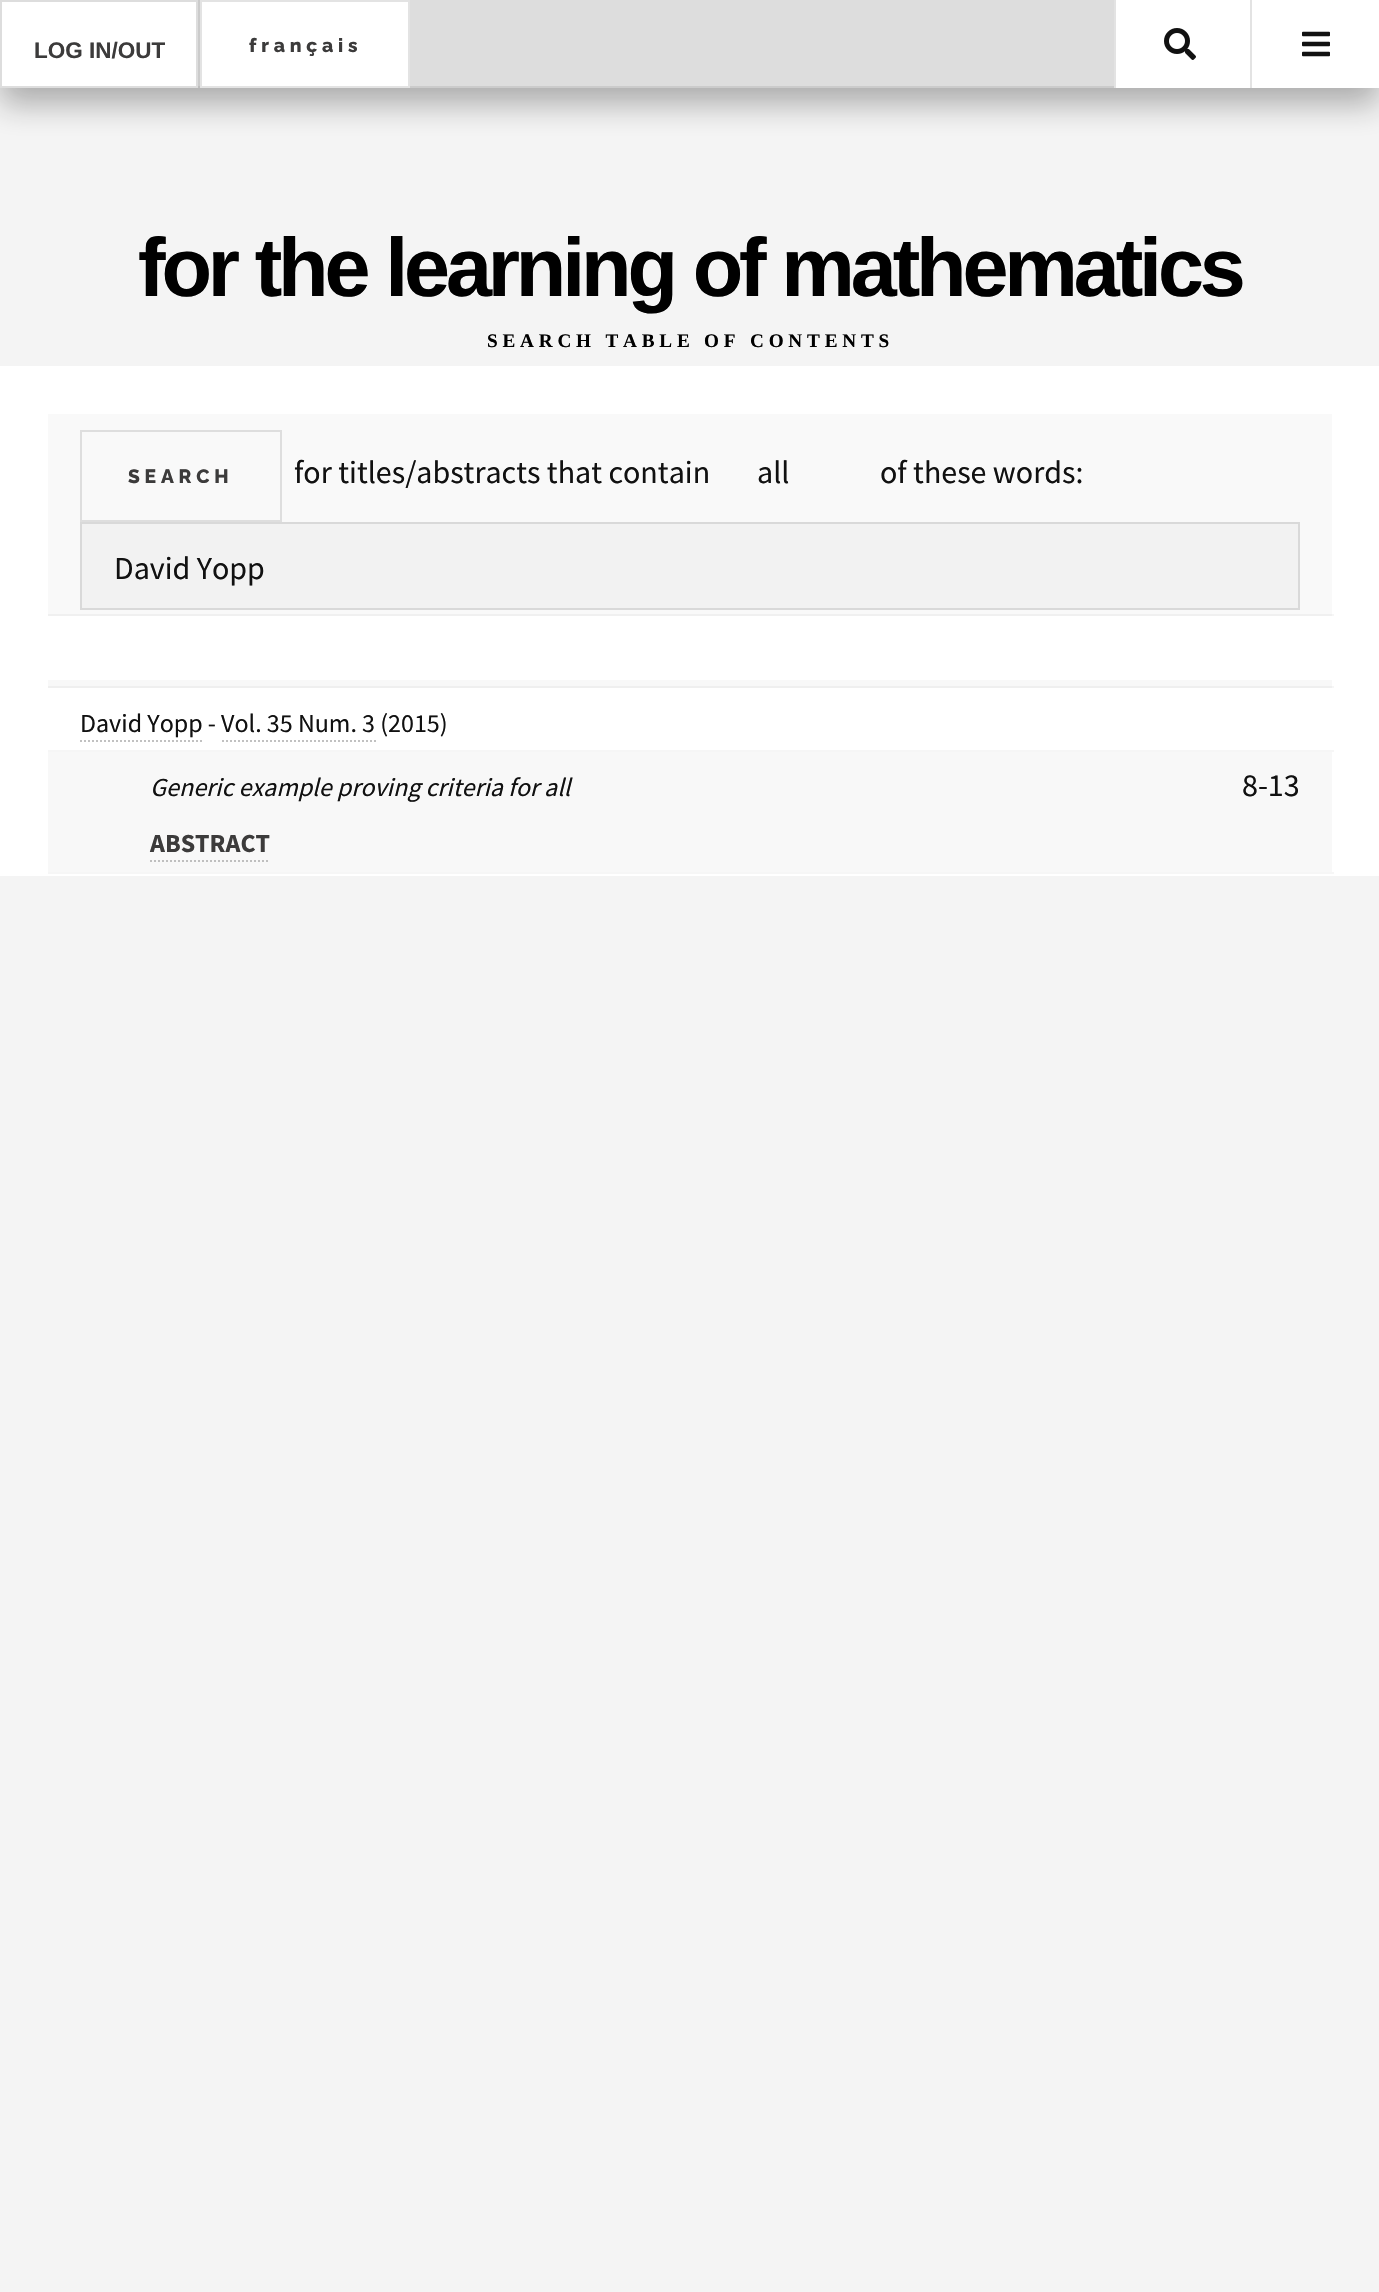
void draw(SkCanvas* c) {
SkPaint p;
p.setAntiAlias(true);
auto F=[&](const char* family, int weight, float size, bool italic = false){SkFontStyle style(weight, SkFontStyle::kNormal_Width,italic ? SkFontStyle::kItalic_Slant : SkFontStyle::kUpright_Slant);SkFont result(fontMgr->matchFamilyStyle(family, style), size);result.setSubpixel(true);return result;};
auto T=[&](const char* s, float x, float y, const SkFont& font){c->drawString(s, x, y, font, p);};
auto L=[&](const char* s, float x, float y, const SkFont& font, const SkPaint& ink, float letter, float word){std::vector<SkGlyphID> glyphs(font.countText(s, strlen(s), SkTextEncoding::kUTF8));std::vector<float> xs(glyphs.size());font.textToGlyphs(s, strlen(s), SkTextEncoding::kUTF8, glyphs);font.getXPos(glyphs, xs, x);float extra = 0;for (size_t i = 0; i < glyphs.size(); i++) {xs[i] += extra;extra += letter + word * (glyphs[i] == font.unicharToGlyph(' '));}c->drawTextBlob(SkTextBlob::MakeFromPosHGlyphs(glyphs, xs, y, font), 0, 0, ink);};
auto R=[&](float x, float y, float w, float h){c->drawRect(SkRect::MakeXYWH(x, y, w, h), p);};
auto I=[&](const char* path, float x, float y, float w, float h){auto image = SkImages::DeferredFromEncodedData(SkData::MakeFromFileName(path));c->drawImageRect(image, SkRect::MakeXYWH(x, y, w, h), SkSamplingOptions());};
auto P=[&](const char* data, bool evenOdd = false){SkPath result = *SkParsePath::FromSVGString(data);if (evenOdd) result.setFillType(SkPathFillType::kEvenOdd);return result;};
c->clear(0xfff4f4f4);
p.setColor(0x54111111);
p.setMaskFilter(SkMaskFilter::MakeBlur(kNormal_SkBlurStyle, 16));
c->drawRect(SkRect::MakeXYWH(0,16,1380,88),p);
p.setMaskFilter(nullptr);
p.setColor(0xffdddddd);
R(410,0,704,86);
p.setColor(0xffcbcbcb);
R(198,0,2,88);
R(410,86,704,2);
p.setColor(0xffbebebe);
R(198,86,2,2);
p.setColor(0xffffffff);
c->drawRect(SkRect::MakeXYWH(1,1,196,86),p);
p.setStroke(true);
p.setStrokeWidth(2);
p.setColor(0xffdddddd);
c->drawRect(SkRect::MakeXYWH(1,1,196,86),p);
auto f1 = F("Liberation Sans",700,22.5);
p.setStroke(false);
p.setColor(0xff3c3b3b);
T("LOG IN/OUT",34,58,f1);
p.setColor(0xffffffff);
c->drawRect(SkRect::MakeXYWH(201,1,208,86),p);
p.setStroke(true);
p.setColor(0xffe3e3e3);
c->drawRect(SkRect::MakeXYWH(201,1,208,86),p);
auto f2 = F("Raleway",800,19.2);
p.setStroke(false);
p.setColor(0xff3c3b3b);
L("français",249,52,f2,p,4.8,0);
p.setColor(0xffffffff);
R(1116,0,263,88);
p.setColor(0xffe3e3e3);
R(1114,0,2,88);
I("1.png",1164,28,32,32);
R(1250,0,2,88);
I("2.png",1302,31,28,26);
auto f3 = F("Liberation Sans",700,82.75);
p.setColor(0xff000000);
L("for the learning of mathematics",138,296,f3,p,-4.15,0);
auto f4 = F("Liberation Serif",700,19.2);
L("SEARCH TABLE OF CONTENTS",487,347,f4,p,4.8,0);
p.setColor(0xffffffff);
R(0,366,1379,510);
p.setColor(0xfff6f6f6);
R(1332,686,2,2);
R(1332,614,2,2);
p.setColor(0xfff9f9f9);
R(48,414,1284,200);
p.setColor(0xfff0f0f0);
R(48,614,1284,2);
p.setStroke(true);
p.setColor(0xffdedede);
c->drawRect(SkRect::MakeXYWH(81,431,200,90),p);
p.setStroke(false);
p.setColor(0xff3c3b3b);
L("SEARCH",128,483,f2,p,4.8,0);
auto f5 = F("Source Sans Pro",400,32);
p.setColor(0xff111111);
T("for titles/abstracts that contain",294,483,f5);
T("all",757,483,f5);
T("of these words:",880,483,f5);
p.setColor(0xfff2f2f2);
c->drawRect(SkRect::MakeXYWH(81,523,1218,86),p);
p.setStroke(true);
p.setColor(0xffd9d9d9);
c->drawRect(SkRect::MakeXYWH(81,523,1218,86),p);
p.setStroke(false);
p.setColor(0xff111111);
T("David Yopp",114,579,f5);
p.setColor(0xfff8f8f8);
R(48,680,1284,6);
p.setColor(0xffefefef);
R(48,686,1284,2);
p.setColor(0xfff6f6f6);
R(48,750,1286,2);
auto f6 = F("Source Sans Pro",400,26);
p.setColor(0xff111111);
T("David Yopp - Vol. 35 Num. 3 (2015)",80,732,f6);
p.setStroke(true);
p.setColor(0xffc1c1c1);
p.setPathEffect(SkDashPathEffect::Make({{2,2}}, 0));
c->drawPath(P("M80 741h122"),p);
p.setPathEffect(nullptr);
p.setPathEffect(SkDashPathEffect::Make({{2,2}}, 0));
c->drawPath(P("M222 741h154"),p);
p.setPathEffect(nullptr);
p.setStroke(false);
p.setColor(0xfff8f8f8);
R(48,752,1284,120);
p.setColor(0xfff6f6f6);
R(48,872,1286,2);
auto f7 = F("Source Sans Pro",400,26,true);
p.setColor(0xff111111);
T("Generic example proving criteria for all",150,796,f7);
auto f8 = F("Source Sans Pro",700,26);
p.setColor(0xff3c3b3b);
T("ABSTRACT",150,852,f8);
p.setStroke(true);
p.setColor(0xffbfbfbf);
p.setPathEffect(SkDashPathEffect::Make({{2,2}}, 0));
c->drawPath(P("M150 861h120"),p);
p.setPathEffect(nullptr);
p.setStroke(false);
p.setColor(0xff111111);
T("8-13",1242,796,f5);
}
